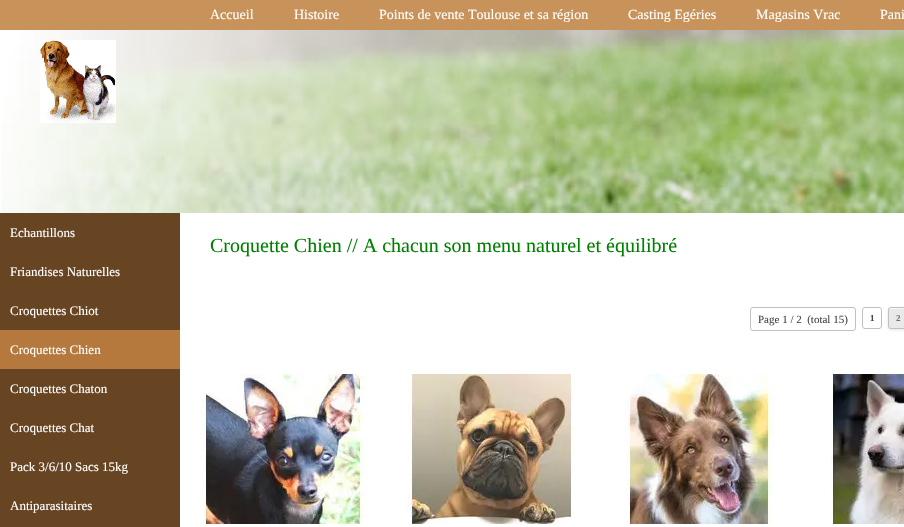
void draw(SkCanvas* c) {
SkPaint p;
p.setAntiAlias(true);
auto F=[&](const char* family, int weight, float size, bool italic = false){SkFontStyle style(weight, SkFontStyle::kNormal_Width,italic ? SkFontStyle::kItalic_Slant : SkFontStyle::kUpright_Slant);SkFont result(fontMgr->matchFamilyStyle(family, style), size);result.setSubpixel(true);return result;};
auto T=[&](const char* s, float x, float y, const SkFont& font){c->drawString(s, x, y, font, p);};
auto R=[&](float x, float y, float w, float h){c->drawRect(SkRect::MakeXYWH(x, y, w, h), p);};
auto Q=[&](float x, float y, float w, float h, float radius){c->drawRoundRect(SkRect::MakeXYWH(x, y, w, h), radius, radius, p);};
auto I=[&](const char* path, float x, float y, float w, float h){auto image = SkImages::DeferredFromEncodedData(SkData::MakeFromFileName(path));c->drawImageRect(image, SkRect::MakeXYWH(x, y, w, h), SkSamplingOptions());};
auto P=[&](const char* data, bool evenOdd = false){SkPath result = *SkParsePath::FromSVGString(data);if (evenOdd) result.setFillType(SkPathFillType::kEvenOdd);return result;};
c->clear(0xffffffff);
p.setColor(0xffc8925b);
R(0,0,904,30);
auto f1 = F("Liberation Serif",400,14);
p.setColor(0xffffffff);
T("Accueil",210,19,f1);
T("Histoire",294,19,f1);
T("Points de vente Toulouse et sa région",379,19,f1);
T("Casting Egéries",628,19,f1);
T("Magasins Vrac",756,19,f1);
T("Pani",880,19,f1);
I("1.png",1,30,903,183);
I("2.png",40,40,76,83);
p.setColor(0xff674523);
R(0,213,180,117);
auto f2 = F("Liberation Serif",400,13);
p.setColor(0xffffffff);
T("Echantillons",10,237,f2);
T("Friandises Naturelles",10,276,f2);
T("Croquettes Chiot",10,315,f2);
p.setColor(0xffb6793d);
R(0,330,180,39);
p.setColor(0xffffffff);
T("Croquettes Chien",10,354,f2);
p.setColor(0xff674523);
R(0,369,180,158);
p.setColor(0xffffffff);
T("Croquettes Chaton",10,393,f2);
T("Croquettes Chat",10,432,f2);
T("Pack 3/6/10 Sacs 15kg",10,471,f2);
T("Antiparasitaires",10,510,f2);
auto f3 = F("Liberation Serif",400,20);
p.setColor(0xff008000);
T("Croquette Chien // A chacun son menu naturel et équilibré",210,252,f3);
p.setStroke(true);
p.setStrokeWidth(1);
p.setColor(0xffc0c0c0);
c->drawRoundRect(SkRect::MakeXYWH(750.5,307.5,105,23),2.5,2.5,p);
auto f4 = F("Liberation Serif",400,11);
p.setStroke(false);
p.setColor(0xff444444);
T("Page 1 / 2  (total 15)",758,323,f4);
p.setStroke(true);
p.setColor(0xffc0c0c0);
c->drawRoundRect(SkRect::MakeXYWH(862.5,307.5,19,21),2.5,2.5,p);
auto f5 = F("Liberation Serif",700,9);
p.setStroke(false);
p.setColor(0xff444444);
T("1",870,321,f5);
p.setColor(0x1a000000);
p.setMaskFilter(SkMaskFilter::MakeBlur(kNormal_SkBlurStyle, 1.5));
c->drawRoundRect(SkRect::MakeXYWH(888,308,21,22),3,3,p);
p.setMaskFilter(nullptr);
p.setColor(0xffe9e9e9);
Q(888,307,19,22,3);
p.setColor(0xfff8f8f8);
c->drawPath(P("M891 309c3 0 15-1 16 1c.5 0 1 1 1 2c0-4-.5-4-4.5-4h-10c-3 0-4.5-.5-4.5 3c0-1 1-2 2-2z"),p);
p.setStroke(true);
p.setColor(0xffc0c0c0);
c->drawRoundRect(SkRect::MakeXYWH(888.5,307.5,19,21),2.5,2.5,p);
p.setStroke(false);
p.setColor(0xff717171);
T("2",896,321,f5);
I("3.png",201,374,166,150);
I("4.png",407,374,168,150);
I("5.png",627,374,148,150);
I("6.png",831,374,73,150);
}
